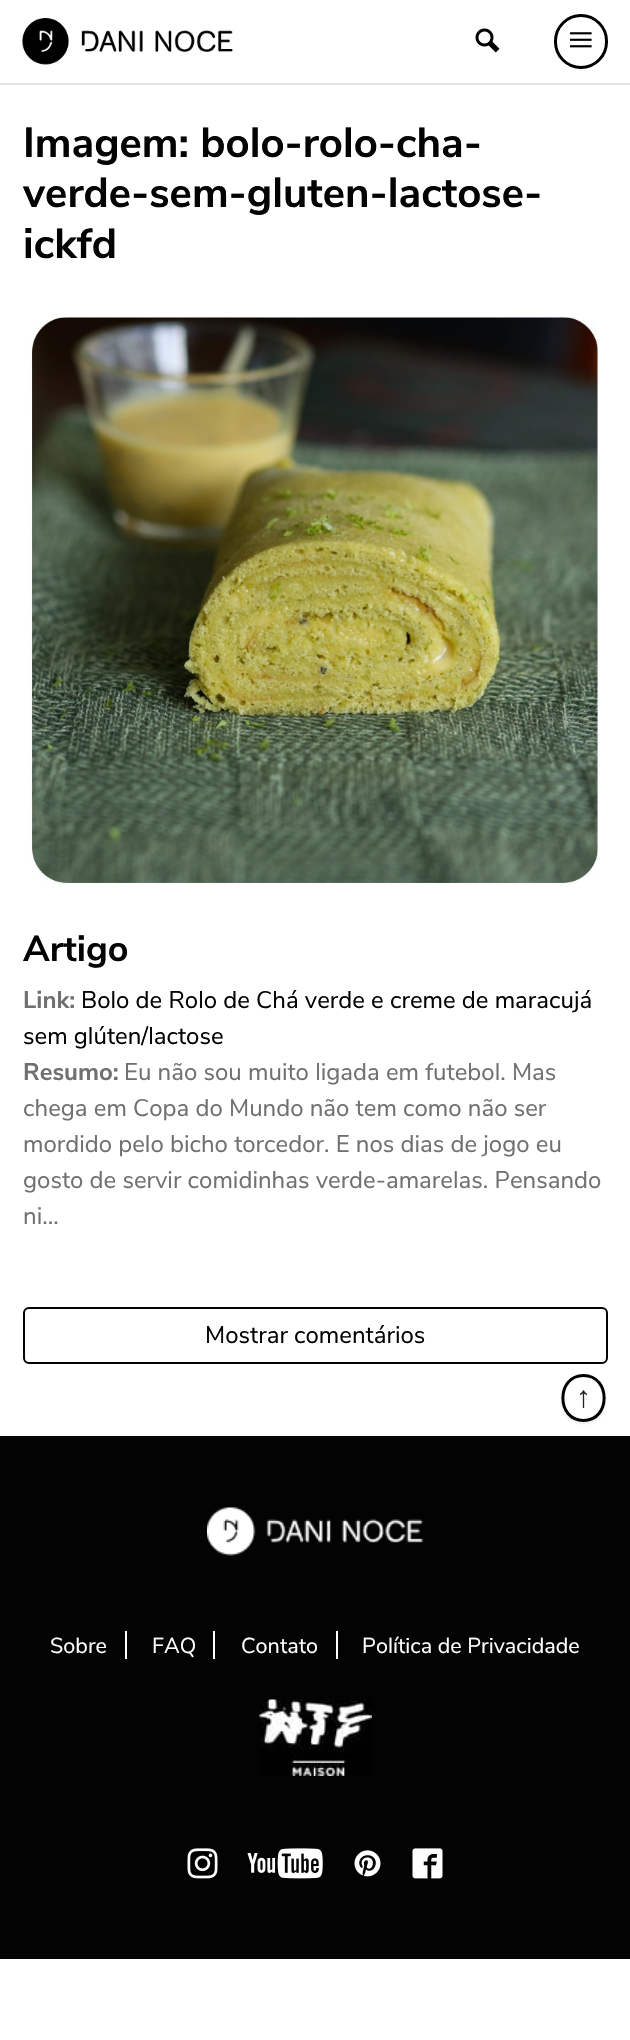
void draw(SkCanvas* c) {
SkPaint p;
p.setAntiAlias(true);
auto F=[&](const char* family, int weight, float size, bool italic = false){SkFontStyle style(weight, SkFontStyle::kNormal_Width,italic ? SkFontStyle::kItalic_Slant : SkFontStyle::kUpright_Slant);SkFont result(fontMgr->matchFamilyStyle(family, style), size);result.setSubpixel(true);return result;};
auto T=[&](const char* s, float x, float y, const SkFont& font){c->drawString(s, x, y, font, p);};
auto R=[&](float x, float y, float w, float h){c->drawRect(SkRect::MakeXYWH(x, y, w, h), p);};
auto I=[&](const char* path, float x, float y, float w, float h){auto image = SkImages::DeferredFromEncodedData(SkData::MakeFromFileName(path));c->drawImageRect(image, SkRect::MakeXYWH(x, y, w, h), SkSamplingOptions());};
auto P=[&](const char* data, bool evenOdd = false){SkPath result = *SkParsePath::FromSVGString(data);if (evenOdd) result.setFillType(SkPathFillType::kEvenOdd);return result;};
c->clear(0xffffffff);
p.setColor(0xffe6e6e6);
R(0,83,630,2);
I("1.png",22,18,211,47);
I("2.png",475,28,25,25);
p.setStroke(true);
p.setStrokeWidth(3);
p.setColor(0xff000000);
c->drawRoundRect(SkRect::MakeXYWH(555.5,15.5,51,52),25.5,25.5,p);
I("3.png",570,32,22,16);
auto f1 = F("Nunito Sans",700,42);
p.setStroke(false);
p.setColor(0xff030303);
T("Imagem: bolo-rolo-cha-",23,157,f1);
T("verde-sem-gluten-lactose-",23,207,f1);
T("ickfd",23,258,f1);
I("4.png",30,316,569,568);
auto f2 = F("Nunito Sans",700,36);
T("Artigo",23,961,f2);
auto f3 = F("Nunito Sans",700,24);
p.setColor(0xff707070);
T("Link:",23,1008,f3);
auto f4 = F("Nunito Sans",400,24);
p.setColor(0xff030303);
T("Bolo de Rolo de Chá verde e creme de maracujá",81,1008,f4);
T("sem glúten/lactose",23,1044,f4);
p.setColor(0xff707070);
T("Resumo:",23,1080,f3);
T("Eu não sou muito ligada em futebol. Mas",124,1080,f4);
T("chega em Copa do Mundo não tem como não ser",23,1116,f4);
T("mordido pelo bicho torcedor. E nos dias de jogo eu",23,1152,f4);
T("gosto de servir comidinhas verde-amarelas. Pensando",23,1188,f4);
T("ni...",23,1224,f4);
p.setStroke(true);
p.setStrokeWidth(2);
p.setColor(0xff030303);
c->drawRoundRect(SkRect::MakeXYWH(24,1308,583,55),5,5,p);
p.setStroke(false);
T("Mostrar comentários",205,1343,f4);
R(0,1436,630,523);
p.setColor(0x12000000);
p.setMaskFilter(SkMaskFilter::MakeBlur(kNormal_SkBlurStyle, 1));
c->drawRoundRect(SkRect::MakeXYWH(561,1376,45,48),22.5,22.5,p);
p.setMaskFilter(nullptr);
p.setColor(0xffffffff);
c->drawOval(SkRect::MakeXYWH(561,1374,45,48),p);
p.setStroke(true);
p.setStrokeWidth(3);
p.setColor(0xff000000);
c->drawPath(P("M583.5 1375.5c27.5 0 27.5 45 0 45c-27.5 0-27.5-45 0-45z"),p);
auto f5 = F("Liberation Sans",400,30);
p.setStroke(false);
p.setColor(0xff212529);
T("↑",576,1407,f5);
I("5.png",207,1507,216,49);
auto f6 = F("Nunito Sans",400,21.6);
p.setColor(0xffffffff);
T("Sobre",50,1653,f6);
R(125,1631,2,28);
T("FAQ",152,1653,f6);
R(213,1631,2,28);
T("Contato",241,1653,f6);
R(336,1631,2,28);
T("Política de Privacidade",362,1653,f6);
I("6.png",259,1699,113,77);
I("7.png",187,1848,31,31);
I("8.png",247,1848,76,31);
I("9.png",354,1850,27,27);
I("10.png",412,1848,31,31);
}
